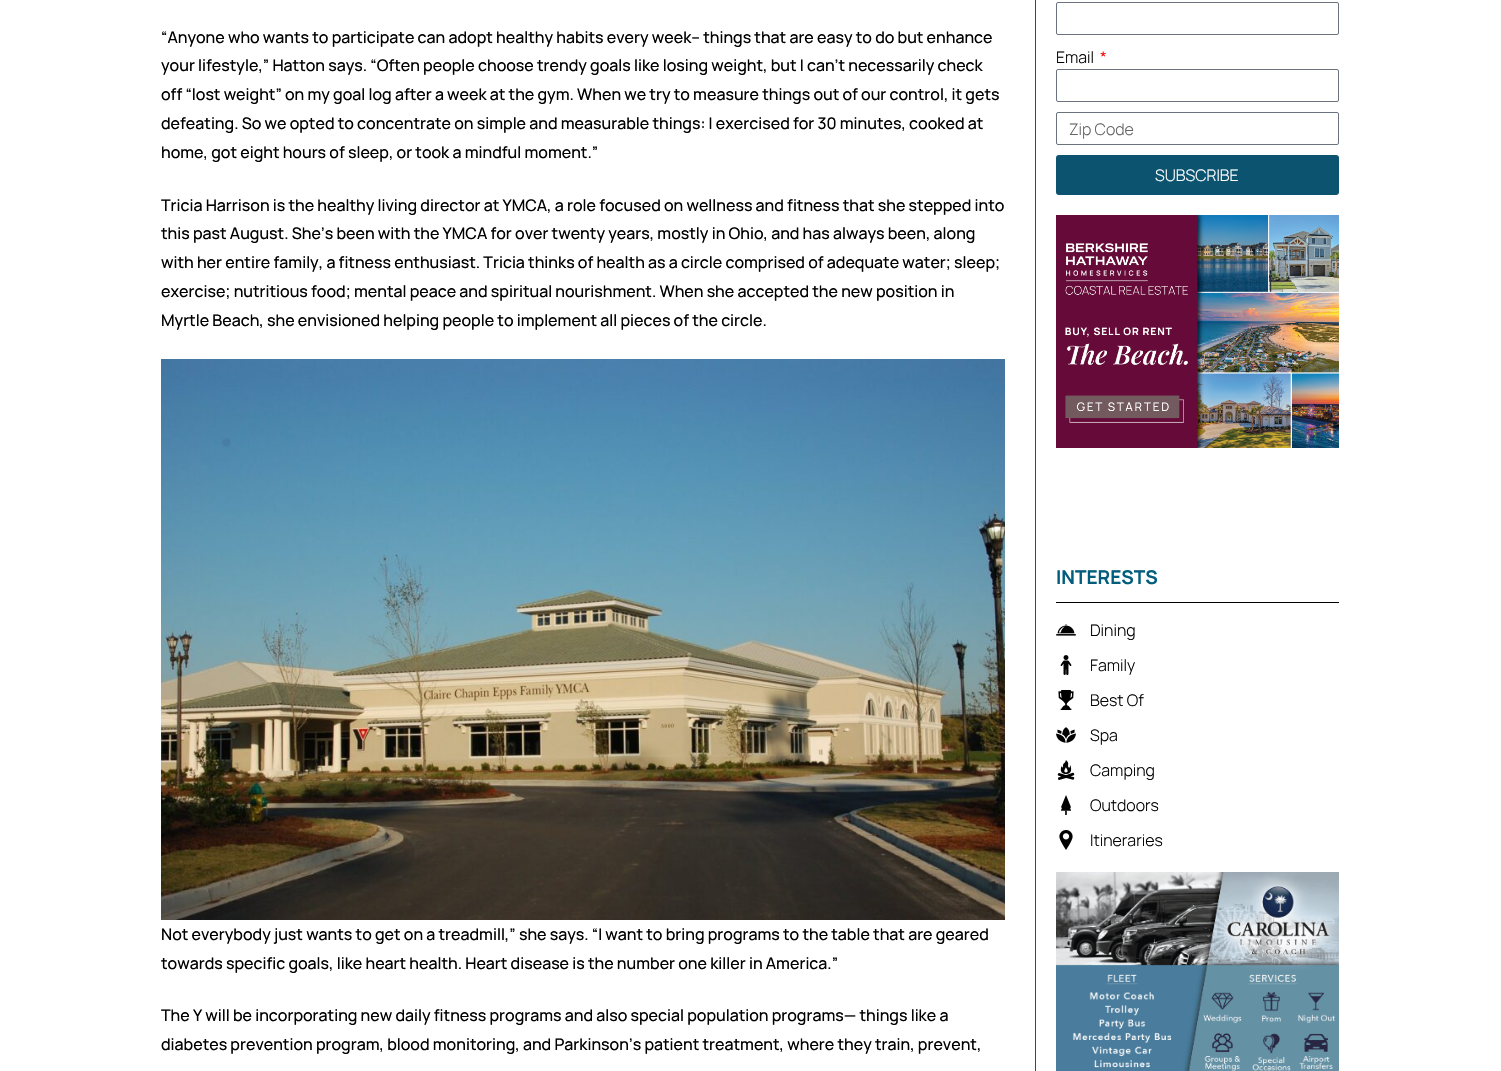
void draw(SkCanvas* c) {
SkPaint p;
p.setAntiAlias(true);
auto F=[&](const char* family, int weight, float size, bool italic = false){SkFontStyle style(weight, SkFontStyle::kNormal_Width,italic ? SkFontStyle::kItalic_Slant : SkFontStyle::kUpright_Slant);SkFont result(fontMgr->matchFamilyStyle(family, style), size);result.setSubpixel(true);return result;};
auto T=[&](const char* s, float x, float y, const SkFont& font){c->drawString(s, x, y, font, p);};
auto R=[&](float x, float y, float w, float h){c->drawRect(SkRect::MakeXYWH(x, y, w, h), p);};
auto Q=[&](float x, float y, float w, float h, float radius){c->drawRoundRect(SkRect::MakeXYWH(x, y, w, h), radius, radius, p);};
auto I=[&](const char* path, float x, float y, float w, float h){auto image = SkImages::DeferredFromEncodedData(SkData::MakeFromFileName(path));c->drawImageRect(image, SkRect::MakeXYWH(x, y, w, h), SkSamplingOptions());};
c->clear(0xffffffff);
auto f1 = F("Manrope",500,16);
p.setColor(0xff000000);
T("“Anyone who wants to participate can adopt healthy habits every week– things that are easy to do but enhance",161,43,f1);
T("your lifestyle,” Hatton says. “Often people choose trendy goals like losing weight, but I can’t necessarily check",161,71,f1);
T("off “lost weight” on my goal log after a week at the gym. When we try to measure things out of our control, it gets",161,100,f1);
T("defeating. So we opted to concentrate on simple and measurable things: I exercised for 30 minutes, cooked at",161,129,f1);
T("home, got eight hours of sleep, or took a mindful moment.”",161,158,f1);
T("Tricia Harrison is the healthy living director at YMCA, a role focused on wellness and fitness that she stepped into",161,211,f1);
T("this past August. She’s been with the YMCA for over twenty years, mostly in Ohio, and has always been, along",161,239,f1);
T("with her entire family, a fitness enthusiast. Tricia thinks of health as a circle comprised of adequate water; sleep;",161,268,f1);
T("exercise; nutritious food; mental peace and spiritual nourishment. When she accepted the new position in",161,297,f1);
T("Myrtle Beach, she envisioned helping people to implement all pieces of the circle.",161,326,f1);
I("1.png",161,359,844,561);
T("Not everybody just wants to get on a treadmill,” she says. “I want to bring programs to the table that are geared",161,940,f1);
T("towards specific goals, like heart health. Heart disease is the number one killer in America.”",161,969,f1);
T("The Y will be incorporating new daily fitness programs and also special population programs— things like a",161,1021,f1);
T("diabetes prevention program, blood monitoring, and Parkinson’s patient treatment, where they train, prevent,",161,1050,f1);
p.setColor(0xff025d7d);
R(1035,0,1,1071);
p.setStroke(true);
p.setStrokeWidth(1);
p.setColor(0xff69727d);
c->drawRoundRect(SkRect::MakeXYWH(1056.5,2.5,282,32),1.5,1.5,p);
auto f2 = F("Manrope",300,16);
p.setStroke(false);
p.setColor(0xff000000);
T("Email",1056,63,f2);
p.setColor(0xffff0000);
T("*",1100,63,f2);
p.setStroke(true);
p.setColor(0xff69727d);
c->drawRoundRect(SkRect::MakeXYWH(1056.5,69.5,282,32),1.5,1.5,p);
c->drawRoundRect(SkRect::MakeXYWH(1056.5,112.5,282,32),1.5,1.5,p);
p.setStroke(false);
p.setColor(0xff666666);
T("Zip Code",1069,135,f2);
p.setColor(0xff0b536e);
Q(1056,155,283,40,3);
p.setColor(0xffffffff);
T("SUBSCRIBE",1155,181,f2);
I("2.png",1056,215,283,233);
p.setColor(0xff000000);
R(1056,602,283,1);
auto f3 = F("Manrope",700,19);
p.setColor(0xff025d7d);
T("INTERESTS",1056,584,f3);
I("3.png",1056,624,20,12);
p.setColor(0xff000000);
T("Dining",1090,636,f2);
I("4.png",1060,655,12,20);
T("Family",1090,671,f2);
I("5.png",1058,690,16,20);
T("Best Of",1090,706,f2);
I("6.png",1056,727,20,16);
T("Spa",1090,741,f2);
I("7.png",1057,760,18,20);
T("Camping",1090,776,f2);
I("8.png",1061,795,10,20);
T("Outdoors",1090,811,f2);
I("9.png",1059,830,14,20);
T("Itineraries",1090,846,f2);
I("10.png",1056,872,283,199);
}
